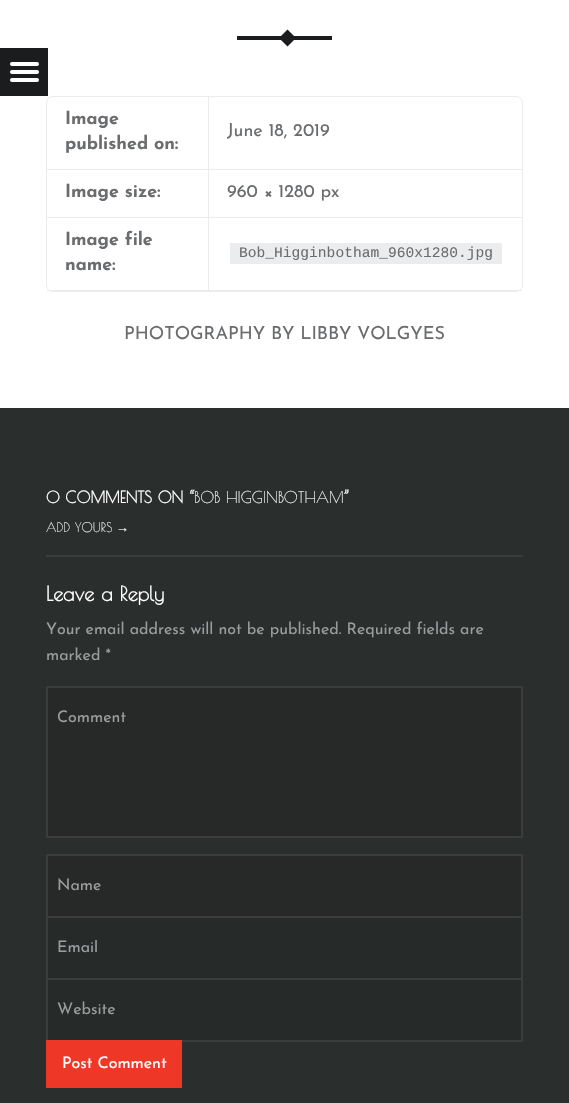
void draw(SkCanvas* c) {
SkPaint p;
p.setAntiAlias(true);
auto F=[&](const char* family, int weight, float size, bool italic = false){SkFontStyle style(weight, SkFontStyle::kNormal_Width,italic ? SkFontStyle::kItalic_Slant : SkFontStyle::kUpright_Slant);SkFont result(fontMgr->matchFamilyStyle(family, style), size);result.setSubpixel(true);return result;};
auto T=[&](const char* s, float x, float y, const SkFont& font){c->drawString(s, x, y, font, p);};
auto R=[&](float x, float y, float w, float h){c->drawRect(SkRect::MakeXYWH(x, y, w, h), p);};
auto Q=[&](float x, float y, float w, float h, float radius){c->drawRoundRect(SkRect::MakeXYWH(x, y, w, h), radius, radius, p);};
auto P=[&](const char* data, bool evenOdd = false){SkPath result = *SkParsePath::FromSVGString(data);if (evenOdd) result.setFillType(SkPathFillType::kEvenOdd);return result;};
c->clear(0xffffffff);
p.setColor(0xff1a1c1e);
R(0,48,48,48);
p.setColor(0xffffffff);
Q(10,62,29,4,2);
Q(10,70,29,4,2);
Q(10,78,29,4,2);
p.setColor(0xff1a1c1e);
R(237,36,95,4);
c->drawPath(P("M287.5 29.5l8.5 8.5l-8.5 8.5l-8.5-8.5z"),p);
p.setStroke(true);
p.setStrokeWidth(1);
p.setColor(0xffeaecee);
c->drawRoundRect(SkRect::MakeXYWH(46.5,96.5,476,195),6.5,6.5,p);
p.setStroke(false);
R(47,169,475,1);
auto f1 = F("Josefin Sans",700,18);
p.setColor(0xff6a6c6e);
T("Image",65,124,f1);
T("published on:",65,149,f1);
p.setColor(0xffeaecee);
R(208,97,1,73);
auto f2 = F("Josefin Sans",400,18);
p.setColor(0xff6a6c6e);
T("June 18, 2019",227,136,f2);
p.setColor(0xffeaecee);
R(47,217,475,1);
p.setColor(0xff6a6c6e);
T("Image size:",65,197,f1);
p.setColor(0xffeaecee);
R(208,170,1,48);
p.setColor(0xff6a6c6e);
T("960 × 1280 px",227,197,f2);
p.setColor(0xffeaecee);
R(47,290,475,1);
p.setColor(0xff6a6c6e);
T("Image file",65,245,f1);
T("name:",65,270,f1);
p.setColor(0xffeaecee);
R(208,218,1,73);
R(230,243,272,21);
auto f3 = F("Liberation Mono",400,14.6);
p.setColor(0xff6a6c6e);
T("Bob_Higginbotham_960x1280.jpg",239,257,f3);
T("PHOTOGRAPHY BY LIBBY VOLGYES",124,339,f2);
p.setColor(0xff2a2e2c);
R(0,408,569,695);
auto f4 = F("Poiret One",700,16);
p.setColor(0xffffffff);
T("0 COMMENTS ON “",46,503,f4);
auto f5 = F("Poiret One",400,16);
T("BOB HIGGINBOTHAM",194,503,f5);
T("”",344,503,f4);
auto f6 = F("Poiret One",400,13);
T("ADD YOURS",46,532,f6);
auto f7 = F("Liberation Sans",400,13);
T("→",116,532,f7);
p.setColor(0xff3a3c3e);
R(46,555,477,2);
auto f8 = F("Poiret One",700,20);
p.setColor(0xffffffff);
T("Leave a Reply",46,601,f8);
auto f9 = F("Josefin Sans",400,16);
p.setColor(0xff9a9c9e);
T("Your email address will not be published. Required fields are",46,634,f9);
T("marked *",46,660,f9);
p.setColor(0xff262928);
c->drawRect(SkRect::MakeXYWH(47,687,475,150),p);
p.setStroke(true);
p.setStrokeWidth(2);
p.setColor(0xff3a3c3e);
c->drawRect(SkRect::MakeXYWH(47,687,475,150),p);
p.setStroke(false);
p.setColor(0xff9a9c9e);
T("Comment",57,722,f9);
p.setColor(0xff262928);
c->drawRect(SkRect::MakeXYWH(47,855,475,62),p);
p.setStroke(true);
p.setColor(0xff3a3c3e);
c->drawRect(SkRect::MakeXYWH(47,855,475,62),p);
p.setStroke(false);
p.setColor(0xff9a9c9e);
T("Name",57,890,f9);
p.setColor(0x1a000000);
c->drawRect(SkRect::MakeXYWH(47,917,475,62),p);
p.setStroke(true);
p.setColor(0xff3a3c3e);
c->drawRect(SkRect::MakeXYWH(47,917,475,62),p);
c->save();
c->clipRect(SkRect::MakeXYWH(57,940,455,16));
p.setStroke(false);
p.setColor(0xff9a9c9e);
T("Email",57,952,f9);
c->restore();
p.setColor(0x1a000000);
c->drawRect(SkRect::MakeXYWH(47,979,475,62),p);
p.setStroke(true);
p.setColor(0xff3a3c3e);
c->drawRect(SkRect::MakeXYWH(47,979,475,62),p);
p.setStroke(false);
p.setColor(0xff9a9c9e);
T("Website",57,1014,f9);
p.setColor(0xffef3727);
R(46,1040,136,48);
p.setColor(0xffffffff);
T("Post Comment",62,1068,f9);
}
